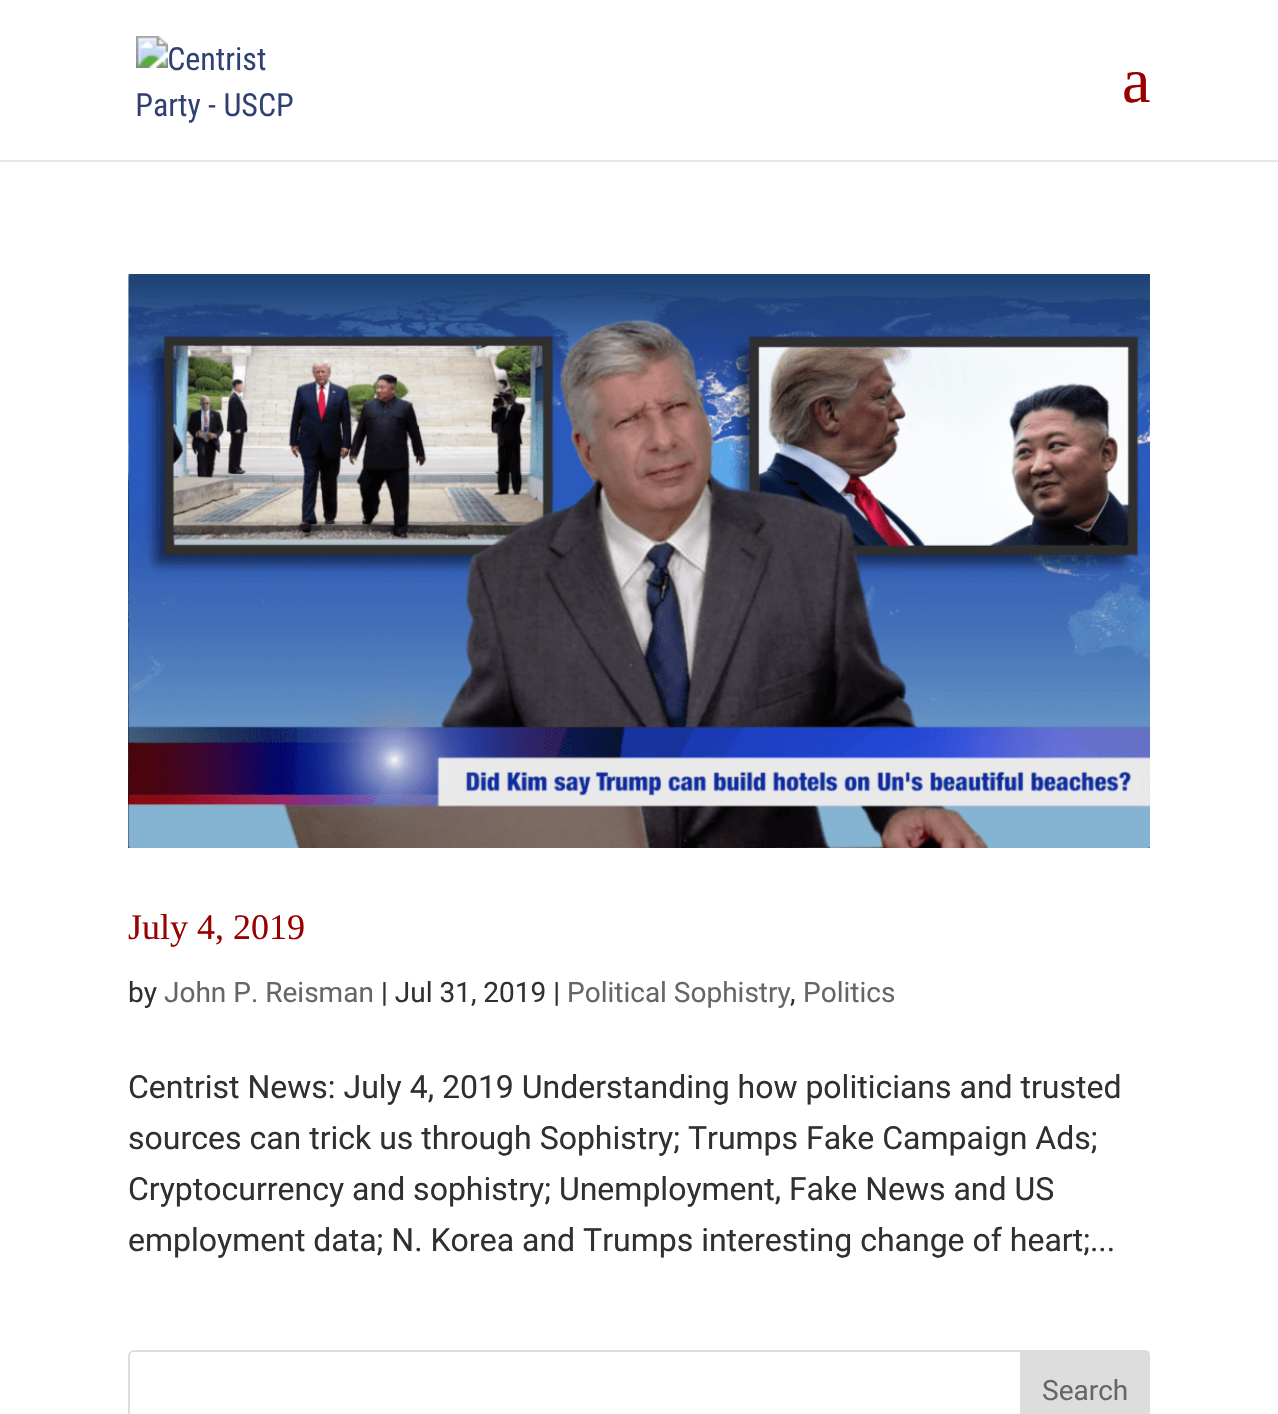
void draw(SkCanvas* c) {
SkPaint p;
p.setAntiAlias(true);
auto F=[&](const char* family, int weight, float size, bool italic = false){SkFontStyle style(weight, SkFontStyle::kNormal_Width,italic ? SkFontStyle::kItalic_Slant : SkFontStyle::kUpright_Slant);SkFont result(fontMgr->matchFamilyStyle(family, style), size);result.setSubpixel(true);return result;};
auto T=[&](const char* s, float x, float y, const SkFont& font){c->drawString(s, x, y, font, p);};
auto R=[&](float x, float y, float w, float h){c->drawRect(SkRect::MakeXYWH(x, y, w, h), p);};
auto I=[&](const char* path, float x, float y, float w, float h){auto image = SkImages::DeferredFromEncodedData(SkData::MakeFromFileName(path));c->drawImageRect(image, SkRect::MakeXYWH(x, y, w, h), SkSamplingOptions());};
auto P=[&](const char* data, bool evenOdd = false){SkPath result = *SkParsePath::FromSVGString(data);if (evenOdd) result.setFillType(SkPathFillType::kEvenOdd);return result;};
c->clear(0xffffffff);
p.setColor(0xffe6e6e6);
R(0,160,1278,2);
I("1.png",136,36,157,87);
auto f1 = F("Liberation Serif",400,64);
p.setColor(0xff990000);
T("a",1122,102,f1);
I("2.png",128,274,1022,574);
auto f2 = F("Liberation Serif",400,36);
T("July 4, 2019",128,939,f2);
auto f3 = F("Roboto",400,28);
p.setColor(0xff303030);
T("by",128,1002,f3);
p.setColor(0xff666666);
T("John P. Reisman",164,1002,f3);
p.setColor(0xff303030);
T("| Jul 31, 2019 |",381,1002,f3);
p.setColor(0xff666666);
T("Political Sophistry",567,1002,f3);
p.setColor(0xff303030);
T(",",790,1002,f3);
p.setColor(0xff666666);
T("Politics",803,1002,f3);
auto f4 = F("Roboto",400,32);
p.setColor(0xff303030);
T("Centrist News: July 4, 2019 Understanding how politicians and trusted",128,1098,f4);
T("sources can trick us through Sophistry; Trumps Fake Campaign Ads;",128,1149,f4);
T("Cryptocurrency and sophistry; Unemployment, Fake News and US",128,1200,f4);
T("employment data; N. Korea and Trumps interesting change of heart;...",128,1251,f4);
p.setStroke(true);
p.setStrokeWidth(2);
p.setColor(0xffdddddd);
c->drawRoundRect(SkRect::MakeXYWH(129,1351,1020,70),5,5,p);
p.setStroke(false);
c->drawPath(P("M1021 1351h123c3 0 5 2 5 5v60c0 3-2 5-5 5h-123z"),p);
p.setStroke(true);
c->drawPath(P("M1021 1351h123c3 0 5 2 5 5v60c0 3-2 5-5 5h-123z"),p);
p.setStroke(false);
p.setColor(0xff666666);
T("Search",1042,1400,f3);
}
